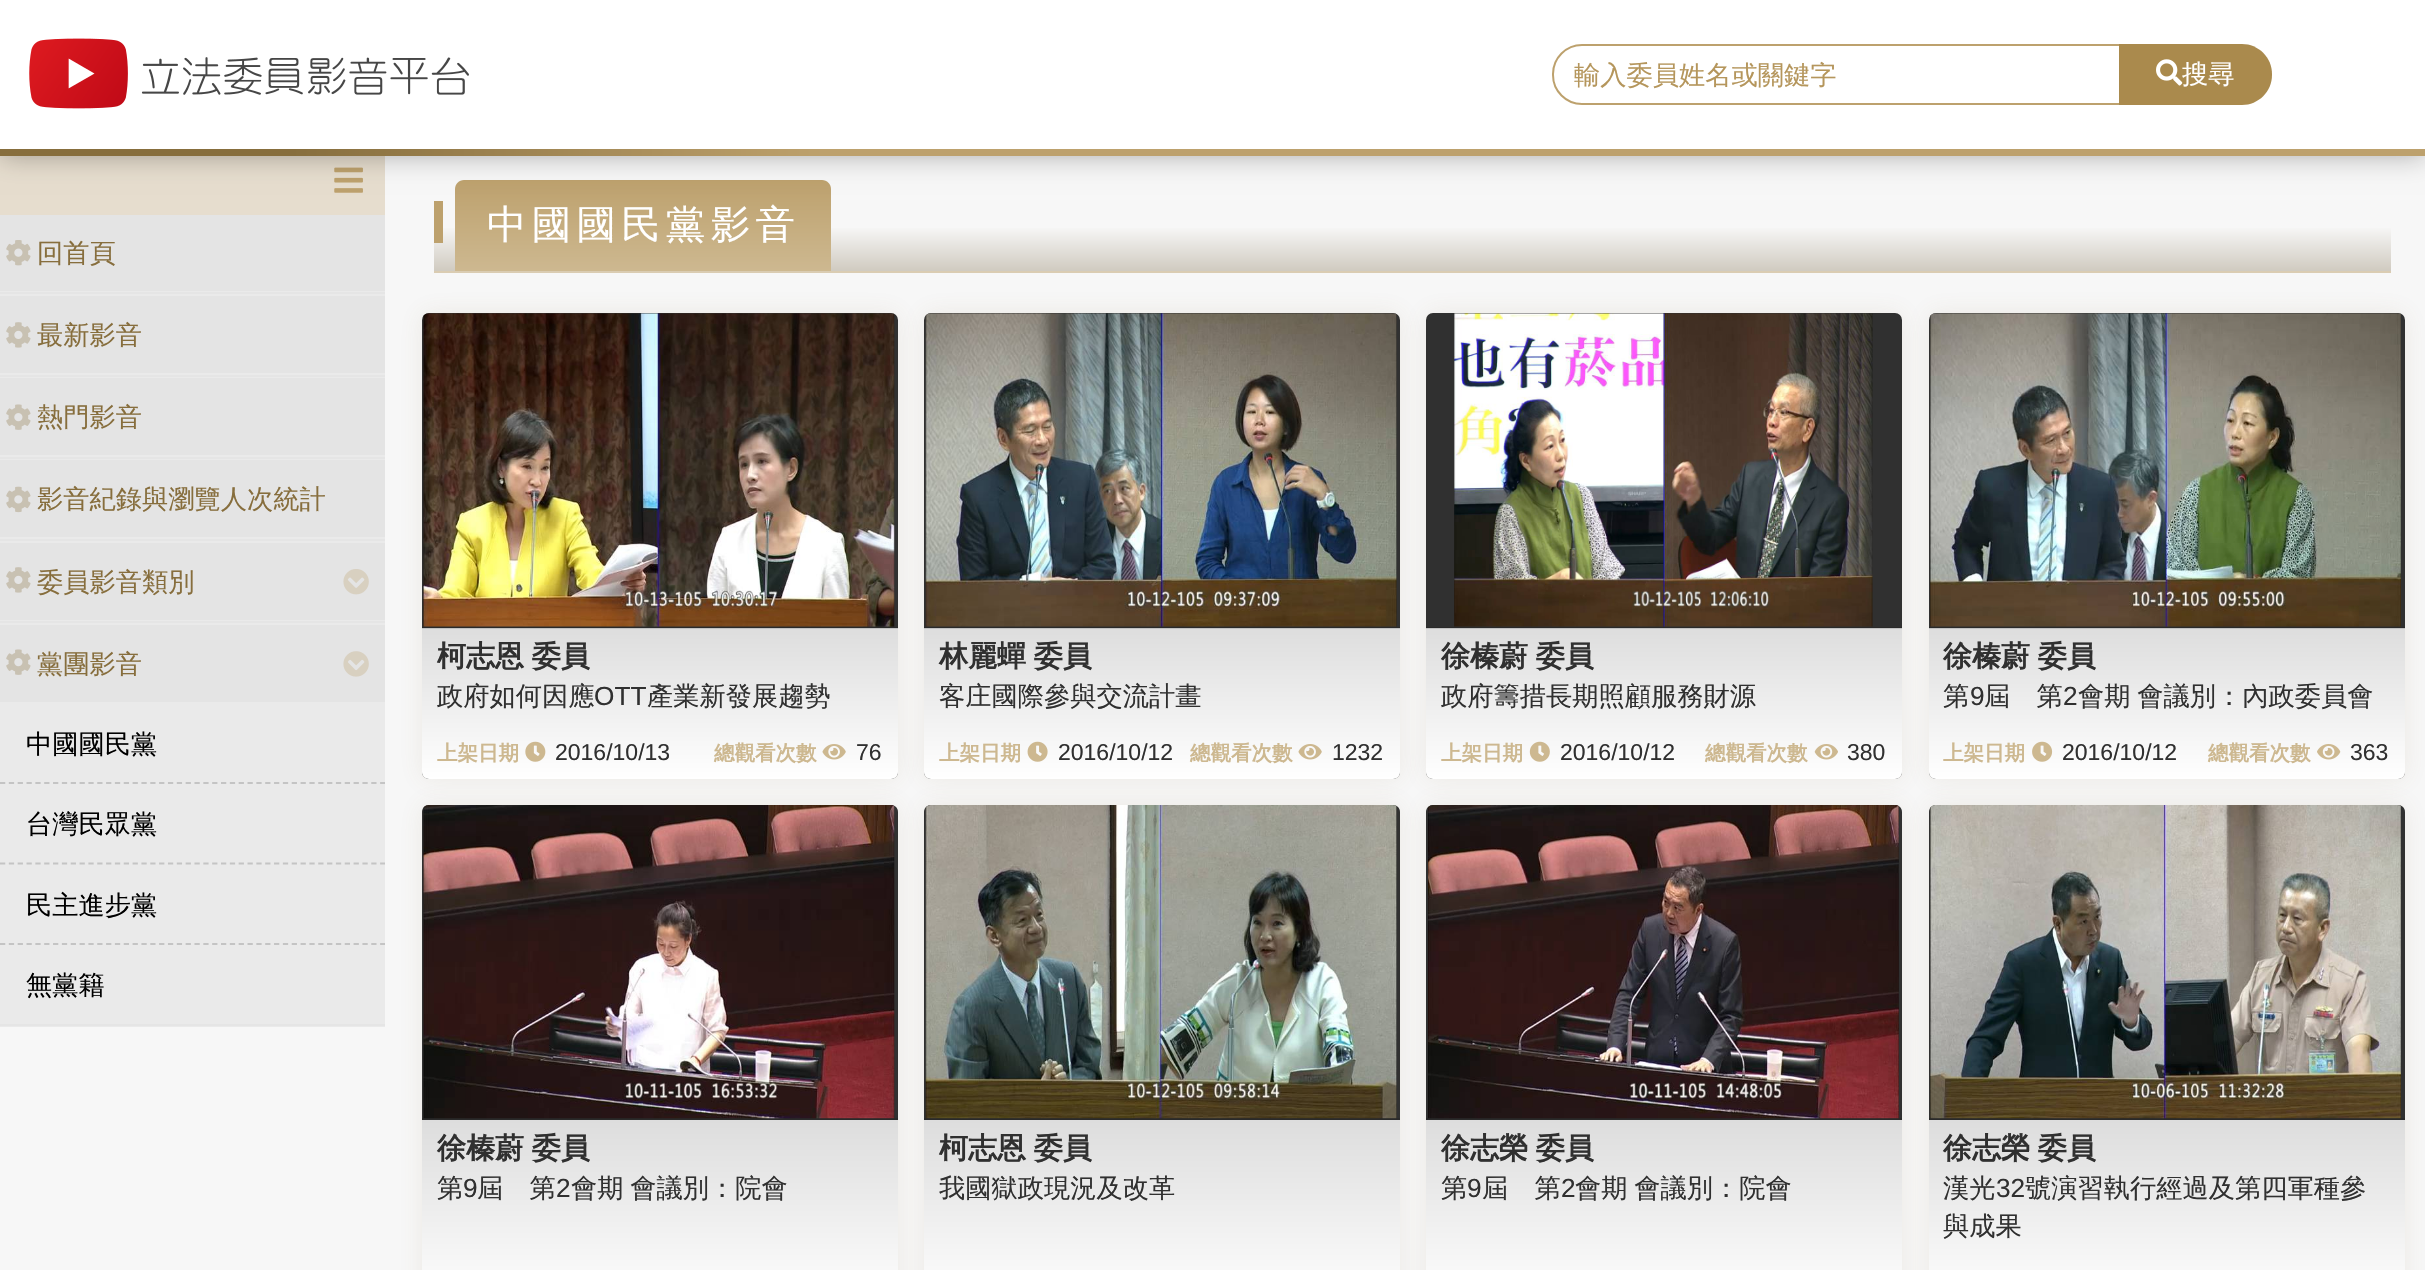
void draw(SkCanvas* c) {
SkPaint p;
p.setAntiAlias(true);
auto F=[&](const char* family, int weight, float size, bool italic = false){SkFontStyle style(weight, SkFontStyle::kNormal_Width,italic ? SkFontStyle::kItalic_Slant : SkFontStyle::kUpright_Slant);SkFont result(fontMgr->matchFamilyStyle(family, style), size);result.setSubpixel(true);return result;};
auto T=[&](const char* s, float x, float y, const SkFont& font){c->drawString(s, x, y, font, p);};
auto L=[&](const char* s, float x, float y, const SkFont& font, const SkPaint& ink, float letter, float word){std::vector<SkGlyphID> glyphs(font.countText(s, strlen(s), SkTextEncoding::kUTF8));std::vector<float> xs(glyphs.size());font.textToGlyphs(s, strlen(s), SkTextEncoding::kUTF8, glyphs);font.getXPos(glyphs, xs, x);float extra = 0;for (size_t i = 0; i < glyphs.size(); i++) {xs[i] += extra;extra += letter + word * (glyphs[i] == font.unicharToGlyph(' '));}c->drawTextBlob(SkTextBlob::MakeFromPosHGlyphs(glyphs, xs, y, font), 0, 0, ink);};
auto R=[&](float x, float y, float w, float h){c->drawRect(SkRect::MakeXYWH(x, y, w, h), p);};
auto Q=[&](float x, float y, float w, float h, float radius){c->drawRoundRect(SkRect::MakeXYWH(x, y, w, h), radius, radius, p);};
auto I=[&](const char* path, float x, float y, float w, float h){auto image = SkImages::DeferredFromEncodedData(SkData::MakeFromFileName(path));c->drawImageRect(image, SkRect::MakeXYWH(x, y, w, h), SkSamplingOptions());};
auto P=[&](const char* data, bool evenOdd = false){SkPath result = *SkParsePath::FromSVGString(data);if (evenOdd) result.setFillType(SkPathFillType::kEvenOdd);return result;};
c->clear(0xfff7f7f7);
p.setColor(0xffe6ddce);
R(0,156,385,59);
I("3.png",334,167,29,26);
{
const SkColor colors[] = {0xfff8f8f8,0xffd0cbc0};
const float stops[] = {.5,1};
const SkPoint ends[] = {{1412,180}, {1412,271}};
p.setShader(SkGradientShader::MakeLinear(ends, colors, stops, 2, SkTileMode::kClamp));
p.setAlpha(255);
}
R(434,228,1957,43);
{
const SkColor colors[] = {0xffbda16d,0xffcdb890};
const float stops[] = {0,1};
const SkPoint ends[] = {{643,180}, {643,271}};
p.setShader(SkGradientShader::MakeLinear(ends, colors, stops, 2, SkTileMode::kClamp));
p.setAlpha(255);
}
c->drawPath(P("M464 180h358c5 0 9 4 9 9v82h-376v-82c0-5 4-9 9-9z"),p);
p.setShader(nullptr);
p.setColor(0x4d000000);
p.setMaskFilter(SkMaskFilter::MakeBlur(kNormal_SkBlurStyle, 13));
c->drawRect(SkRect::MakeXYWH(0,0,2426,156),p);
p.setMaskFilter(nullptr);
{
const SkColor colors[] = {0xff876e3d,0xffbda16d};
const float stops[] = {.12,.34};
const SkPoint ends[] = {{0,78}, {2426,78}};
p.setShader(SkGradientShader::MakeLinear(ends, colors, stops, 2, SkTileMode::kClamp));
p.setAlpha(255);
}
R(0,149,2425,7);
p.setShader(nullptr);
p.setColor(0xffffffff);
R(0,0,2425,149);
I("1.png",29,38,440,71);
p.setStroke(true);
p.setStrokeWidth(2);
p.setColor(0xffbda16d);
c->drawPath(P("M1582 45h538v59h-538c-16 0-29-13-29-29v-1c0-16 13-29 29-29z"),p);
auto f1 = F("WenQuanYi Zen Hei",500,26.25);
p.setStroke(false);
p.setColor(0xffb5965c);
T("輸入委員姓名或關鍵字",1574,84,f1);
p.setColor(0xffaa8a4d);
c->drawPath(P("M2119 44h123c16.5 0 30 13.5 30 30v1c0 16.5-13.5 30-30 30h-123z"),p);
I("2.png",2156,59,27,27);
p.setColor(0xffffffff);
T("搜尋",2182,83,f1);
p.setColor(0xffeaeaea);
R(0,291,385,736);
p.setColor(0xffe5e5e5);
R(0,292,385,2);
p.setColor(0xffe4e4e4);
R(0,215,385,76);
I("4.png",6,240,25,26);
p.setColor(0xff876e3d);
T("回首頁",37,262,f1);
p.setColor(0xffe5e5e5);
R(0,375,385,2);
p.setColor(0xffe4e4e4);
R(0,296,385,77);
I("5.png",6,322,25,26);
p.setColor(0xff876e3d);
T("最新影音",37,344,f1);
p.setColor(0xffe5e5e5);
R(0,457,385,2);
p.setColor(0xffe4e4e4);
R(0,378,385,77);
I("6.png",6,404,25,26);
p.setColor(0xff876e3d);
T("熱門影音",37,426,f1);
p.setColor(0xffe5e5e5);
R(0,539,385,2);
p.setColor(0xffe4e4e4);
R(0,460,385,77);
I("7.png",6,486,25,27);
p.setColor(0xff876e3d);
T("影音紀錄與瀏覽人次統計",37,508,f1);
p.setColor(0xffe5e5e5);
R(0,621,385,2);
p.setColor(0xffe4e4e4);
R(0,543,385,77);
I("5.png",6,567,25,26);
p.setColor(0xff876e3d);
T("委員影音類別",37,591,f1);
I("8.png",343,569,26,26);
p.setColor(0xffe5e5e5);
R(0,1024,385,2);
p.setColor(0xffe4e4e4);
R(0,625,385,77);
I("6.png",6,649,25,26);
p.setColor(0xff876e3d);
T("黨團影音",37,673,f1);
I("9.png",343,651,26,26);
p.setStroke(true);
p.setStrokeWidth(1.8);
p.setColor(0xffc4c4c4);
p.setPathEffect(SkDashPathEffect::Make({{5.25f,3.59f}}, 0));
c->drawPath(P("M0 783h385"),p);
p.setPathEffect(nullptr);
p.setStroke(false);
p.setColor(0xff000000);
T("中國國民黨",26,753,f1);
p.setStroke(true);
p.setColor(0xffc4c4c4);
p.setPathEffect(SkDashPathEffect::Make({{5.25f,3.59f}}, 0));
c->drawPath(P("M0 863.5h385"),p);
p.setPathEffect(nullptr);
p.setStroke(false);
p.setColor(0xff000000);
T("台灣民眾黨",26,833,f1);
p.setStroke(true);
p.setColor(0xffc4c4c4);
p.setPathEffect(SkDashPathEffect::Make({{5.25f,3.59f}}, 0));
c->drawPath(P("M0 944h385"),p);
p.setPathEffect(nullptr);
p.setStroke(false);
p.setColor(0xff000000);
T("民主進步黨",26,914,f1);
T("無黨籍",26,994,f1);
p.setColor(0xffdaccb2);
R(434,271,1957,2);
p.setColor(0xffbda16d);
R(434,201,9,42);
auto f2 = F("WenQuanYi Zen Hei",500,39.5);
p.setColor(0xffffffff);
L("中國國民黨影音",487,238,f2,p,5.25,0);
p.setColor(0x1a876e3d);
p.setMaskFilter(SkMaskFilter::MakeBlur(kNormal_SkBlurStyle, 12));
c->drawRoundRect(SkRect::MakeXYWH(422,313,476,466),7,7,p);
p.setMaskFilter(nullptr);
p.setColor(0xff303030);
Q(422,313,476,466,7);
I("10.png",423,313,472,314);
{
const SkColor colors[] = {0xffdddddd,0xffffffff};
const float stops[] = {0,1};
const SkPoint ends[] = {{660,628}, {660,779}};
p.setShader(SkGradientShader::MakeLinear(ends, colors, stops, 2, SkTileMode::kClamp));
p.setAlpha(255);
}
c->drawPath(P("M422 628h476v144c0 4-3 7-7 7h-462c-4 0-7-3-7-7z"),p);
p.setShader(nullptr);
p.setColor(0x1f000000);
R(422,627,476,2);
auto f3 = F("WenQuanYi Zen Hei",700,29);
p.setColor(0xff303030);
L("柯志恩 委員",437,666,f3,p,0,-1);
T("政府如何因應",437,705,f1);
auto f4 = F("Liberation Sans",400,26.25);
T("OTT",594,705,f4);
T("產業新發展趨勢",647,705,f1);
I("11.png",525,741,21,21);
auto f5 = F("WenQuanYi Zen Hei",700,20.5);
p.setColor(0xffcdb890);
T("上架日期",437,760,f5);
auto f6 = F("Liberation Sans",400,23);
p.setColor(0xff303030);
T("2016/10/13",555,760,f6);
I("12.png",822,744,24,16);
p.setColor(0xffcdb890);
T("總觀看次數",714,760,f5);
p.setColor(0xff303030);
T("76",856,760,f6);
p.setColor(0x1a876e3d);
p.setMaskFilter(SkMaskFilter::MakeBlur(kNormal_SkBlurStyle, 12));
c->drawRoundRect(SkRect::MakeXYWH(924,313,476,466),7,7,p);
p.setMaskFilter(nullptr);
p.setColor(0xff303030);
Q(924,313,476,466,7);
p.setColor(0xff2a2a2a);
R(924,627,476,1);
I("13.png",925,313,472,314);
{
const SkColor colors[] = {0xffdddddd,0xffffffff};
const float stops[] = {0,1};
const SkPoint ends[] = {{1162,628}, {1162,779}};
p.setShader(SkGradientShader::MakeLinear(ends, colors, stops, 2, SkTileMode::kClamp));
p.setAlpha(255);
}
c->drawPath(P("M924 628h476v144c0 4-3 7-7 7h-462c-4 0-7-3-7-7z"),p);
{
const SkColor colors[] = {0xffc2c2c2,0xffe0e0e0};
const float stops[] = {0,1};
const SkPoint ends[] = {{1162,628}, {1162,779}};
p.setShader(SkGradientShader::MakeLinear(ends, colors, stops, 2, SkTileMode::kClamp));
p.setAlpha(255);
}
R(924,628,476,1);
p.setShader(nullptr);
p.setColor(0xff303030);
L("林麗蟬 委員",939,666,f3,p,0,-1);
T("客庄國際參與交流計畫",939,705,f1);
I("14.png",1027,741,21,21);
p.setColor(0xffcdb890);
T("上架日期",939,760,f5);
p.setColor(0xff303030);
T("2016/10/12",1058,760,f6);
I("12.png",1298,744,24,16);
p.setColor(0xffcdb890);
T("總觀看次數",1190,760,f5);
p.setColor(0xff303030);
T("1232",1332,760,f6);
p.setColor(0x1a876e3d);
p.setMaskFilter(SkMaskFilter::MakeBlur(kNormal_SkBlurStyle, 12));
c->drawRoundRect(SkRect::MakeXYWH(1426,313,476,466),7,7,p);
p.setMaskFilter(nullptr);
p.setColor(0xff303030);
Q(1426,313,476,466,7);
I("15.png",1454,313,419,314);
{
const SkColor colors[] = {0xffdddddd,0xffffffff};
const float stops[] = {0,1};
const SkPoint ends[] = {{1664,628}, {1664,779}};
p.setShader(SkGradientShader::MakeLinear(ends, colors, stops, 2, SkTileMode::kClamp));
p.setAlpha(255);
}
c->drawPath(P("M1426 628h476v144c0 4-3 7-7 7h-462c-4 0-7-3-7-7z"),p);
p.setShader(nullptr);
p.setColor(0x1f000000);
R(1426,627,476,2);
p.setColor(0xff303030);
L("徐榛蔚 委員",1441,666,f3,p,0,-1);
T("政府籌措長期照顧服務財源",1441,705,f1);
I("16.png",1529,741,21,21);
p.setColor(0xffcdb890);
T("上架日期",1441,760,f5);
p.setColor(0xff303030);
T("2016/10/12",1560,760,f6);
I("17.png",1814,744,24,16);
p.setColor(0xffcdb890);
T("總觀看次數",1705,760,f5);
p.setColor(0xff303030);
T("380",1847,760,f6);
p.setColor(0x1a876e3d);
p.setMaskFilter(SkMaskFilter::MakeBlur(kNormal_SkBlurStyle, 12));
c->drawRoundRect(SkRect::MakeXYWH(1929,313,476,466),7,7,p);
p.setMaskFilter(nullptr);
p.setColor(0xff303030);
Q(1929,313,476,466,7);
I("18.png",1930,313,471,314);
{
const SkColor colors[] = {0xffdddddd,0xffffffff};
const float stops[] = {0,1};
const SkPoint ends[] = {{2167,628}, {2167,779}};
p.setShader(SkGradientShader::MakeLinear(ends, colors, stops, 2, SkTileMode::kClamp));
p.setAlpha(255);
}
c->drawPath(P("M1929 628h476v144c0 4-3 7-7 7h-462c-4 0-7-3-7-7z"),p);
p.setShader(nullptr);
p.setColor(0x1f000000);
R(1929,627,476,2);
p.setColor(0xff303030);
L("徐榛蔚 委員",1943,666,f3,p,0,-1);
T("第",1943,705,f1);
T("9",1970,705,f4);
T("屆　第",1984,705,f1);
T("2",2063,705,f4);
L("會期 會議別：內政委員會",2078,705,f1,p,0,-1);
I("19.png",2032,741,21,21);
p.setColor(0xffcdb890);
T("上架日期",1943,760,f5);
p.setColor(0xff303030);
T("2016/10/12",2062,760,f6);
I("20.png",2317,744,24,16);
p.setColor(0xffcdb890);
T("總觀看次數",2208,760,f5);
p.setColor(0xff303030);
T("363",2350,760,f6);
p.setColor(0x1a876e3d);
p.setMaskFilter(SkMaskFilter::MakeBlur(kNormal_SkBlurStyle, 12));
c->drawRoundRect(SkRect::MakeXYWH(422,805,476,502),7,7,p);
p.setMaskFilter(nullptr);
p.setColor(0xff303030);
c->drawPath(P("M429 805h462c4 0 7 3 7 7v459h-476v-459c0-4 3-7 7-7z"),p);
I("21.png",423,805,472,314);
p.setColor(0x1f000000);
R(422,1118,476,2);
{
const SkColor colors[] = {0xffdddddd,0xffffffff};
const float stops[] = {0,1};
const SkPoint ends[] = {{660,1120}, {660,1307}};
p.setShader(SkGradientShader::MakeLinear(ends, colors, stops, 2, SkTileMode::kClamp));
p.setAlpha(255);
}
R(422,1120,476,150);
p.setShader(nullptr);
p.setColor(0xff303030);
L("徐榛蔚 委員",437,1158,f3,p,0,-1);
T("第",437,1197,f1);
T("9",463,1197,f4);
T("屆　第",477,1197,f1);
T("2",556,1197,f4);
L("會期 會議別：院會",571,1197,f1,p,0,-1);
p.setColor(0x1a876e3d);
p.setMaskFilter(SkMaskFilter::MakeBlur(kNormal_SkBlurStyle, 12));
c->drawRoundRect(SkRect::MakeXYWH(924,805,476,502),7,7,p);
p.setMaskFilter(nullptr);
p.setColor(0xff303030);
c->drawPath(P("M931 805h462c4 0 7 3 7 7v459h-476v-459c0-4 3-7 7-7z"),p);
I("22.png",925,805,472,314);
p.setColor(0x1f000000);
R(924,1118,476,2);
{
const SkColor colors[] = {0xffdddddd,0xffffffff};
const float stops[] = {0,1};
const SkPoint ends[] = {{1162,1120}, {1162,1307}};
p.setShader(SkGradientShader::MakeLinear(ends, colors, stops, 2, SkTileMode::kClamp));
p.setAlpha(255);
}
R(924,1120,476,150);
p.setShader(nullptr);
p.setColor(0xff303030);
L("柯志恩 委員",939,1158,f3,p,0,-1);
T("我國獄政現況及改革",939,1197,f1);
p.setColor(0x1a876e3d);
p.setMaskFilter(SkMaskFilter::MakeBlur(kNormal_SkBlurStyle, 12));
c->drawRoundRect(SkRect::MakeXYWH(1426,805,476,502),7,7,p);
p.setMaskFilter(nullptr);
p.setColor(0xff303030);
c->drawPath(P("M1433 805h462c4 0 7 3 7 7v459h-476v-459c0-4 3-7 7-7z"),p);
I("23.png",1428,805,471,314);
p.setColor(0x1f000000);
R(1426,1118,476,2);
{
const SkColor colors[] = {0xffdddddd,0xffffffff};
const float stops[] = {0,1};
const SkPoint ends[] = {{1664,1120}, {1664,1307}};
p.setShader(SkGradientShader::MakeLinear(ends, colors, stops, 2, SkTileMode::kClamp));
p.setAlpha(255);
}
R(1426,1120,476,150);
p.setShader(nullptr);
p.setColor(0xff303030);
L("徐志榮 委員",1441,1158,f3,p,0,-1);
T("第",1441,1197,f1);
T("9",1467,1197,f4);
T("屆　第",1482,1197,f1);
T("2",1561,1197,f4);
L("會期 會議別：院會",1575,1197,f1,p,0,-1);
p.setColor(0x1a876e3d);
p.setMaskFilter(SkMaskFilter::MakeBlur(kNormal_SkBlurStyle, 12));
c->drawRoundRect(SkRect::MakeXYWH(1929,805,476,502),7,7,p);
p.setMaskFilter(nullptr);
p.setColor(0xff303030);
c->drawPath(P("M1936 805h462c4 0 7 3 7 7v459h-476v-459c0-4 3-7 7-7z"),p);
I("24.png",1930,805,471,314);
p.setColor(0x1f000000);
R(1929,1118,476,2);
{
const SkColor colors[] = {0xffdddddd,0xffffffff};
const float stops[] = {0,1};
const SkPoint ends[] = {{2167,1120}, {2167,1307}};
p.setShader(SkGradientShader::MakeLinear(ends, colors, stops, 2, SkTileMode::kClamp));
p.setAlpha(255);
}
R(1929,1120,476,150);
p.setShader(nullptr);
p.setColor(0xff303030);
L("徐志榮 委員",1943,1158,f3,p,0,-1);
T("漢光",1943,1197,f1);
T("32",1996,1197,f4);
T("號演習執行經過及第四軍種參",2025,1197,f1);
T("與成果",1943,1235,f1);
}
